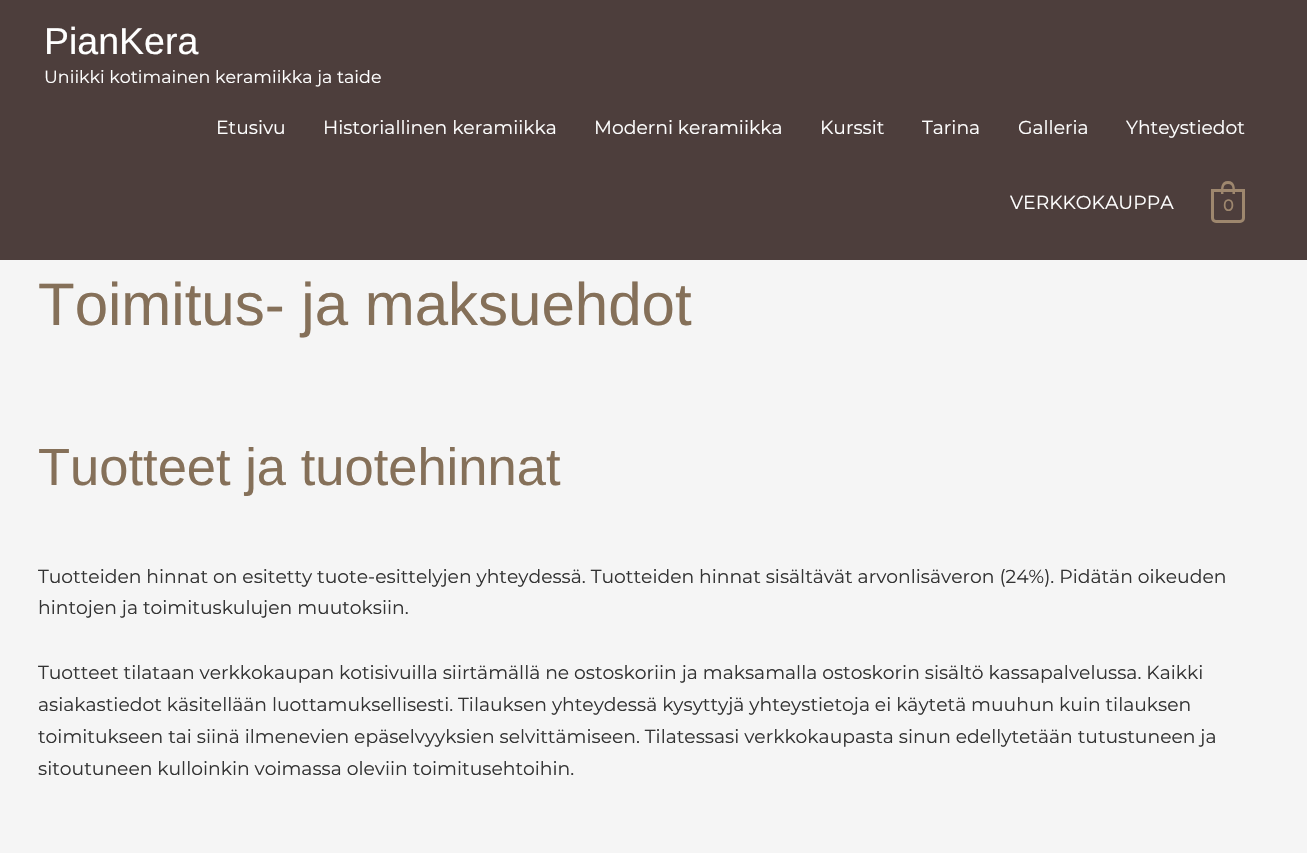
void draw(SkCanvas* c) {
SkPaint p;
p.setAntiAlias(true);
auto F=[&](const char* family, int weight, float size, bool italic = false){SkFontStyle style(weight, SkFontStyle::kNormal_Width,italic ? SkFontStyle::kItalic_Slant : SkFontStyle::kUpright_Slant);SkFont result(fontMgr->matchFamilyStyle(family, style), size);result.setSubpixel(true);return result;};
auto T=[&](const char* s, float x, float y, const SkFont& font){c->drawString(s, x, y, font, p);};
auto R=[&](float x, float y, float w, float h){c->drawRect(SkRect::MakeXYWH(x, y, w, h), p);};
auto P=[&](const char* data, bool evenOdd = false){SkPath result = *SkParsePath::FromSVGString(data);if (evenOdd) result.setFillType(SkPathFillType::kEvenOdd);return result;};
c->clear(0xfff5f5f5);
p.setColor(0xff4d3e3c);
R(0,0,1307,260);
auto f1 = F("Liberation Sans",400,37.5);
p.setColor(0xffffffff);
T("PianKera",44,54,f1);
auto f2 = F("Montserrat",100,17.5);
T("Uniikki kotimainen keramiikka ja taide",44,83,f2);
auto f3 = F("Montserrat",100,18.75);
T("Etusivu",216,134,f3);
T("Historiallinen keramiikka",323,134,f3);
T("Moderni keramiikka",594,134,f3);
T("Kurssit",820,134,f3);
T("Tarina",922,134,f3);
T("Galleria",1018,134,f3);
T("Yhteystiedot",1126,134,f3);
T("VERKKOKAUPPA",1010,209,f3);
p.setStroke(true);
p.setStrokeWidth(3);
p.setColor(0xff9e876e);
c->drawPath(P("M1212.5 190.5h31v27.5c0 2-1.5 3.5-3.5 3.5h-24c-2 0-3.5-1.5-3.5-3.5z"),p);
p.setStroke(false);
c->drawPath(P("M1228 181c7.5 0 7 7.5 7 13h-14c0-5.5-.5-13 7-13zm0 3c5.5 0 4.5 6 4.5 10h-9c0-4-1-10 4.5-10z",true),p);
auto f4 = F("Montserrat",700,16);
T("0",1223,211,f4);
auto f5 = F("Liberation Sans",400,60);
p.setColor(0xff857059);
T("Toimitus- ja maksuehdot",38,325,f5);
auto f6 = F("Liberation Sans",400,52.5);
T("Tuotteet ja tuotehinnat",38,485,f6);
p.setColor(0xff333333);
T("Tuotteiden hinnat on esitetty tuote-esittelyjen yhteydessä. Tuotteiden hinnat sisältävät arvonlisäveron (24%). Pidätän oikeuden",38,583,f3);
T("hintojen ja toimituskulujen muutoksiin.",38,614,f3);
T("Tuotteet tilataan verkkokaupan kotisivuilla siirtämällä ne ostoskoriin ja maksamalla ostoskorin sisältö kassapalvelussa. Kaikki",38,679,f3);
T("asiakastiedot käsitellään luottamuksellisesti. Tilauksen yhteydessä kysyttyjä yhteystietoja ei käytetä muuhun kuin tilauksen",38,711,f3);
T("toimitukseen tai siinä ilmenevien epäselvyyksien selvittämiseen. Tilatessasi verkkokaupasta sinun edellytetään tutustuneen ja",38,743,f3);
T("sitoutuneen kulloinkin voimassa oleviin toimitusehtoihin.",38,775,f3);
}
